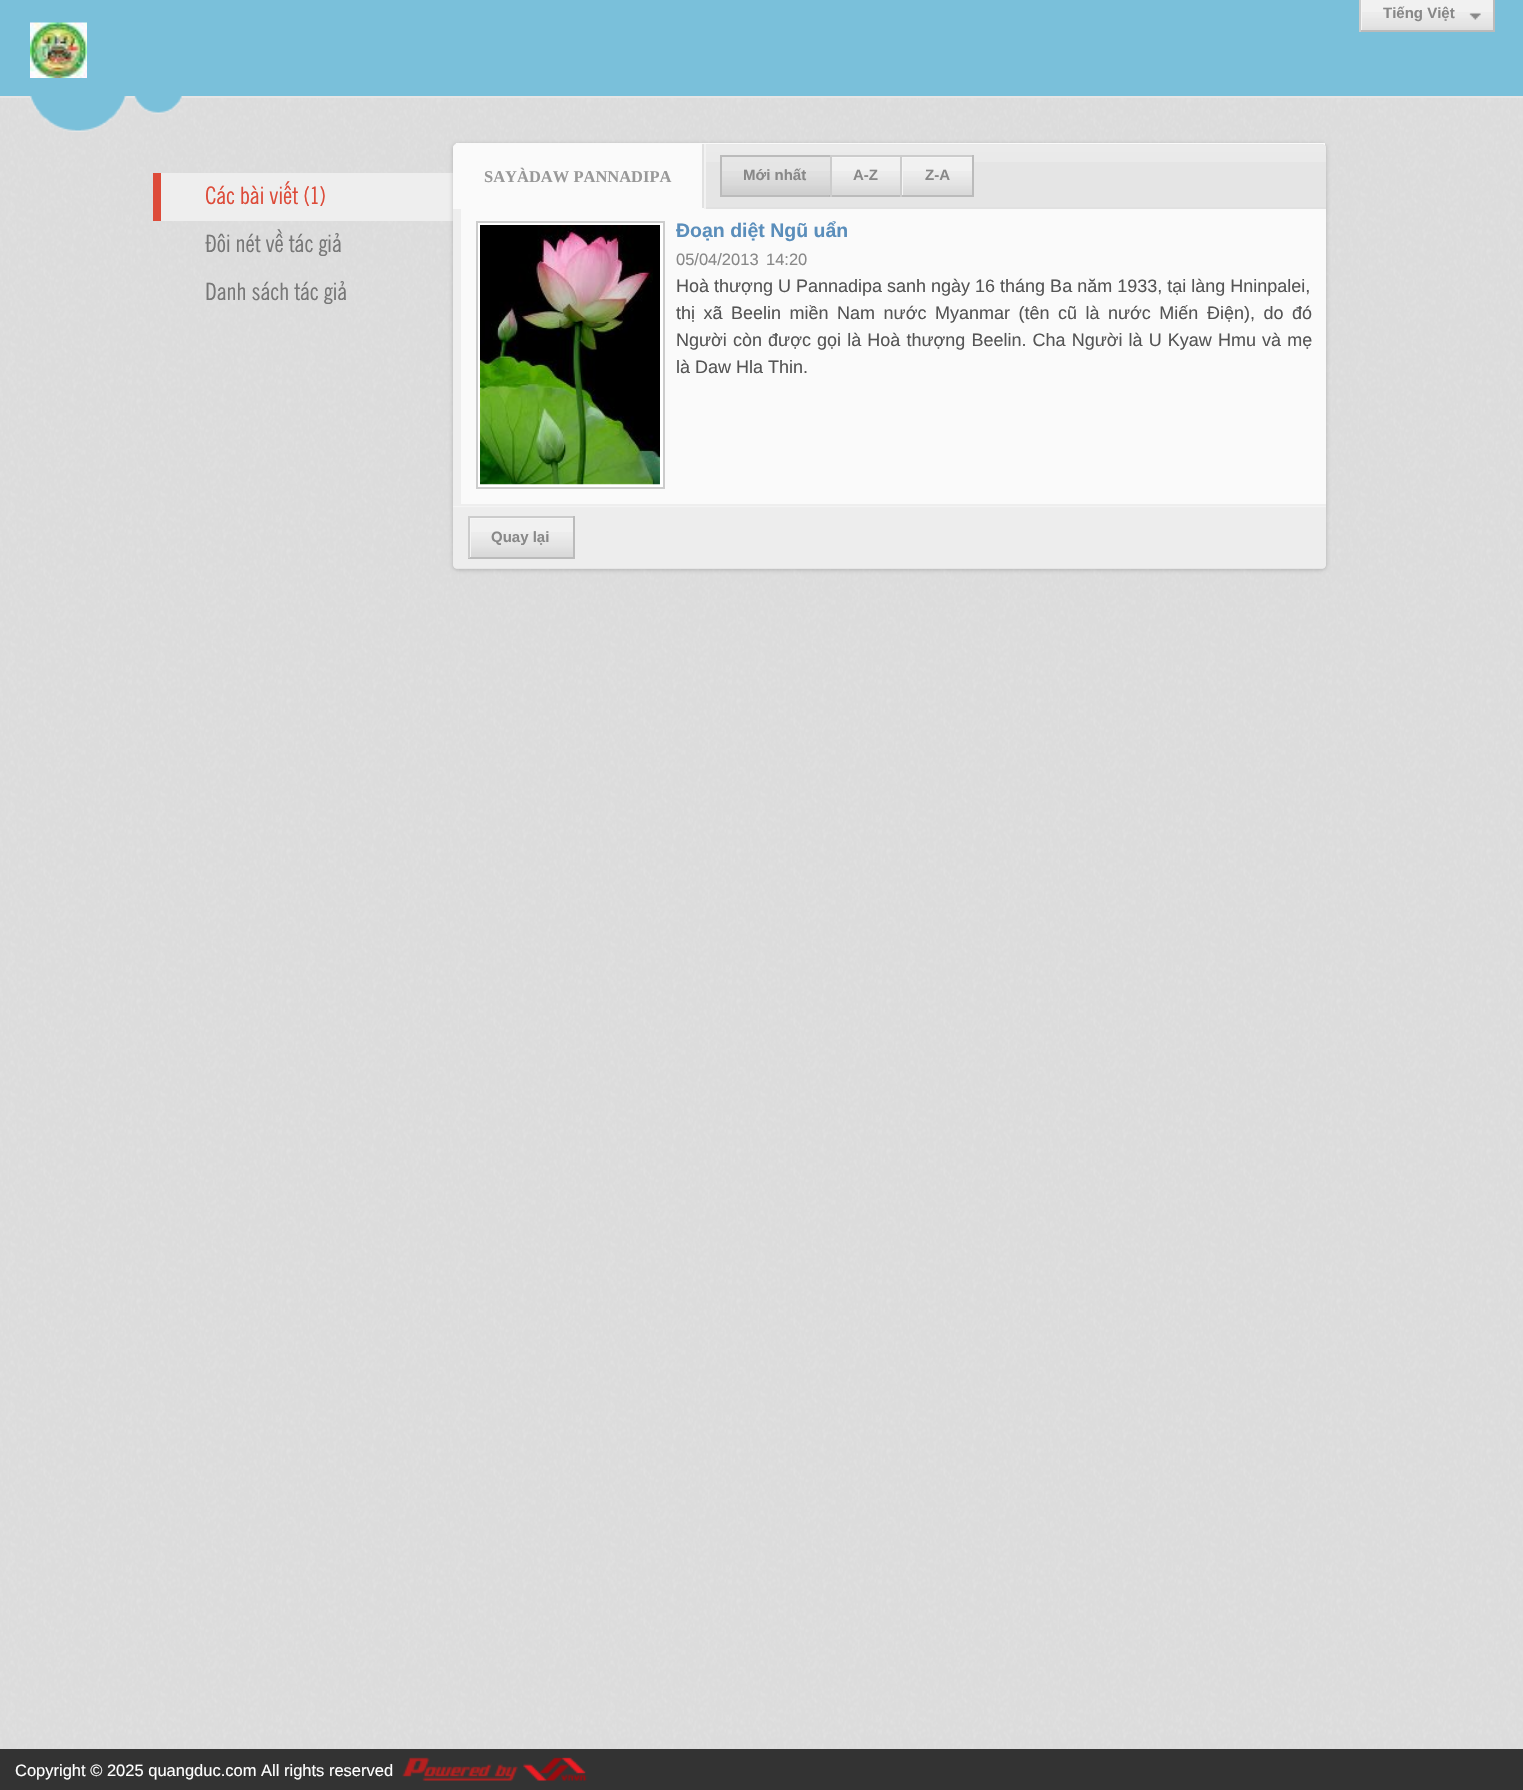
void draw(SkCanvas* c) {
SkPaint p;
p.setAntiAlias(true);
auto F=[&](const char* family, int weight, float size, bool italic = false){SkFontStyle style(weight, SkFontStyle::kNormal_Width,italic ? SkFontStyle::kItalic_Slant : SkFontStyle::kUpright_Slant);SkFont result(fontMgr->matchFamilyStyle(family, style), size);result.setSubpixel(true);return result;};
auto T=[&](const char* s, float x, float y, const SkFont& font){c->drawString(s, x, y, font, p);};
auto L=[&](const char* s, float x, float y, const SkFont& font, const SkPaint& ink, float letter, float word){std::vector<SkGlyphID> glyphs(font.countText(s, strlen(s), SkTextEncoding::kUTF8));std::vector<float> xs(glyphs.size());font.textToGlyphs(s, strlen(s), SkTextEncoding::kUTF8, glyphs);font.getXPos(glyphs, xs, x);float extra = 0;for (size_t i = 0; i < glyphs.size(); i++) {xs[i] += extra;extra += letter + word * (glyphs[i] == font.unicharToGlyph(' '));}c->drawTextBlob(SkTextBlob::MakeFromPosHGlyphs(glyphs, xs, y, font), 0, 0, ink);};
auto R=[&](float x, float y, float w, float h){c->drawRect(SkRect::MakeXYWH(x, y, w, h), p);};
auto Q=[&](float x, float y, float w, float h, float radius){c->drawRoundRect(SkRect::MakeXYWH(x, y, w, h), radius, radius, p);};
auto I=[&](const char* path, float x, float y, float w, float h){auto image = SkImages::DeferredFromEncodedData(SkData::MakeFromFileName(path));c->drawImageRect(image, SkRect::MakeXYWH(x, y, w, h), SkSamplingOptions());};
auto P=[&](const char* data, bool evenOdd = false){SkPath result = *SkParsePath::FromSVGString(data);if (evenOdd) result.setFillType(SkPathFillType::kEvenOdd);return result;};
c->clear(0xffffffff);
I("1.png",0,98,1523,1651);
p.setColor(0xff7ac0da);
R(0,0,1523,96);
p.setColor(0xffe5e5e5);
R(0,96,1523,2);
p.setColor(0xfff1f1f1);
R(1362,0,131,30);
I("2.png",1362,12,131,18);
c->save();
c->clipRect(SkRect::MakeXYWH(1361,0,132,30));
p.setColor(0xfff5f5f5);
c->drawPath(P("M1212-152h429v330h-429zm150 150h132v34h-132z",true),p);
c->restore();
p.setColor(0xffbbbbbb);
R(1493,0,2,32);
R(1359,30,135,2);
p.setColor(0xffcccccc);
R(1359,0,2,32);
auto f1 = F("Liberation Sans",700,15);
p.setColor(0xff888888);
T("Tiếng Việt",1383,18,f1);
I("3.png",1469,13,12,7);
I("4.png",30,22,57,56);
I("5.png",30,96,152,36);
p.setColor(0xffeeeeee);
R(161,173,292,48);
p.setColor(0xffdd4b39);
R(153,173,8,48);
auto f2 = F("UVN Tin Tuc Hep",400,24);
T("Các bài viết (1)",205,204,f2);
p.setColor(0xff777777);
T("Đôi nét về tác giả",205,252,f2);
T("Danh sách tác giả",205,300,f2);
p.setColor(0x33000000);
p.setMaskFilter(SkMaskFilter::MakeBlur(kNormal_SkBlurStyle, 2));
c->drawRoundRect(SkRect::MakeXYWH(453,144,873,426),5,5,p);
p.setMaskFilter(nullptr);
p.setColor(0xfff1f1f1);
Q(453,143,873,426,5);
p.setColor(0xfffafafa);
R(456,143,869,2);
p.setColor(0xffe5e5e5);
c->drawPath(P("M458 144h863c3 0 5 2 5 5v60h-873v-60c0-3 2-5 5-5z"),p);
I("6.png",453,144,873,18);
p.setColor(0xffe1e1e1);
R(706,207,620,2);
p.setColor(0xfff2f2f2);
R(704,144,2,65);
p.setColor(0xfffafafa);
c->drawPath(P("M458 144h246v65h-251v-60c0-3 2-5 5-5z"),p);
p.setColor(0xffe1e1e1);
R(702,144,2,64);
p.setColor(0xfffafafa);
c->drawPath(P("M458 144c-3 0-5 2-5 4v60h1v-60c0-2 2-4 4-4z"),p);
auto f3 = F("Liberation Serif",700,16.5);
p.setColor(0xff999999);
T("SAYÀDAW PANNADIPA",484,182,f3);
p.setColor(0xffe6e6e6);
R(722,157,108,5);
I("7.png",722,171,108,24);
p.setColor(0xffbbbbbb);
R(720,155,110,2);
R(720,195,110,2);
R(720,155,2,42);
p.setColor(0xff888888);
T("Mới nhất",743,180,f1);
p.setColor(0xfff1f1f1);
R(832,158,68,37);
I("8.png",829,171,71,26);
c->save();
c->clipRect(SkRect::MakeXYWH(831,156,69,39));
p.setColor(0xfff5f5f5);
c->drawPath(P("M682 8h366v336h-366zm150 150h70v38h-70z",true),p);
c->restore();
p.setColor(0xffcccccc);
R(830,155,70,2);
p.setColor(0xffbbbbbb);
R(830,195,70,2);
p.setColor(0xffcccccc);
R(830,155,2,42);
p.setColor(0xff888888);
T("A-Z",853,180,f1);
p.setColor(0xfff1f1f1);
R(903,158,69,37);
I("9.png",903,171,69,24);
c->save();
c->clipRect(SkRect::MakeXYWH(902,156,70,39));
p.setColor(0xfff5f5f5);
c->drawPath(P("M753 8h367v336h-367zm150 150h71v38h-71z",true),p);
c->restore();
p.setColor(0xffcccccc);
R(900,155,74,2);
p.setColor(0xffbbbbbb);
R(972,155,2,42);
R(900,195,74,2);
p.setColor(0xffcccccc);
R(900,155,2,42);
p.setColor(0xff888888);
T("Z-A",925,180,f1);
p.setColor(0xfffafafa);
R(461,209,865,295);
p.setColor(0xffeeeeee);
R(453,504,873,2);
R(453,209,8,297);
p.setColor(0xffffffff);
c->drawRect(SkRect::MakeXYWH(477,222,187,266),p);
p.setStroke(true);
p.setStrokeWidth(2);
p.setColor(0xffcccccc);
c->drawRect(SkRect::MakeXYWH(477,222,187,266),p);
I("10.png",480,225,180,260);
auto f4 = F("Liberation Sans",700,19.5);
p.setStroke(false);
p.setColor(0xff5a8ebb);
T("Đoạn diệt Ngũ uẩn",676,237,f4);
auto f5 = F("Liberation Sans",400,16.5);
p.setColor(0xff888888);
T("05/04/2013",676,265,f5);
T("14:20",766,265,f5);
auto f6 = F("Liberation Sans",400,18);
p.setColor(0xff555555);
T("Hoà thượng U Pannadipa sanh ngày 16 tháng Ba năm 1933, tại làng Hninpalei,",676,292,f6);
L("thị xã Beelin miền Nam nước Myanmar (tên cũ là nước Miến Điện), do đó",676,319,f6,p,0,3.5);
L("Người còn được gọi là Hoà thượng Beelin. Cha Người là U Kyaw Hmu và mẹ",676,346,f6,p,0,1.1);
T("là Daw Hla Thin.",676,373,f6);
p.setColor(0xffe5e5e5);
c->drawPath(P("M453 506h873v58c0 3-2 5-5 5h-863c-3 0-5-2-5-5z"),p);
I("11.png",453,506,873,62);
p.setColor(0xfff1f1f1);
R(471,519,102,38);
I("12.png",471,532,102,25);
c->save();
c->clipRect(SkRect::MakeXYWH(470,518,103,39));
p.setColor(0xfff5f5f5);
c->drawPath(P("M321 369h401v336h-401zm150 150h103v39h-103z",true),p);
c->restore();
p.setColor(0xffcccccc);
R(468,516,107,2);
p.setColor(0xffbbbbbb);
R(573,516,2,42);
R(468,557,107,2);
p.setColor(0xffcccccc);
R(468,516,2,42);
p.setColor(0xff888888);
T("Quay lại",491,542,f1);
p.setColor(0xff333333);
R(0,1749,1523,41);
p.setColor(0xffffffff);
T("Copyright © 2025 quangduc.com All rights reserved",15,1776,f5);
I("13.png",402,1757,185,24);
}
